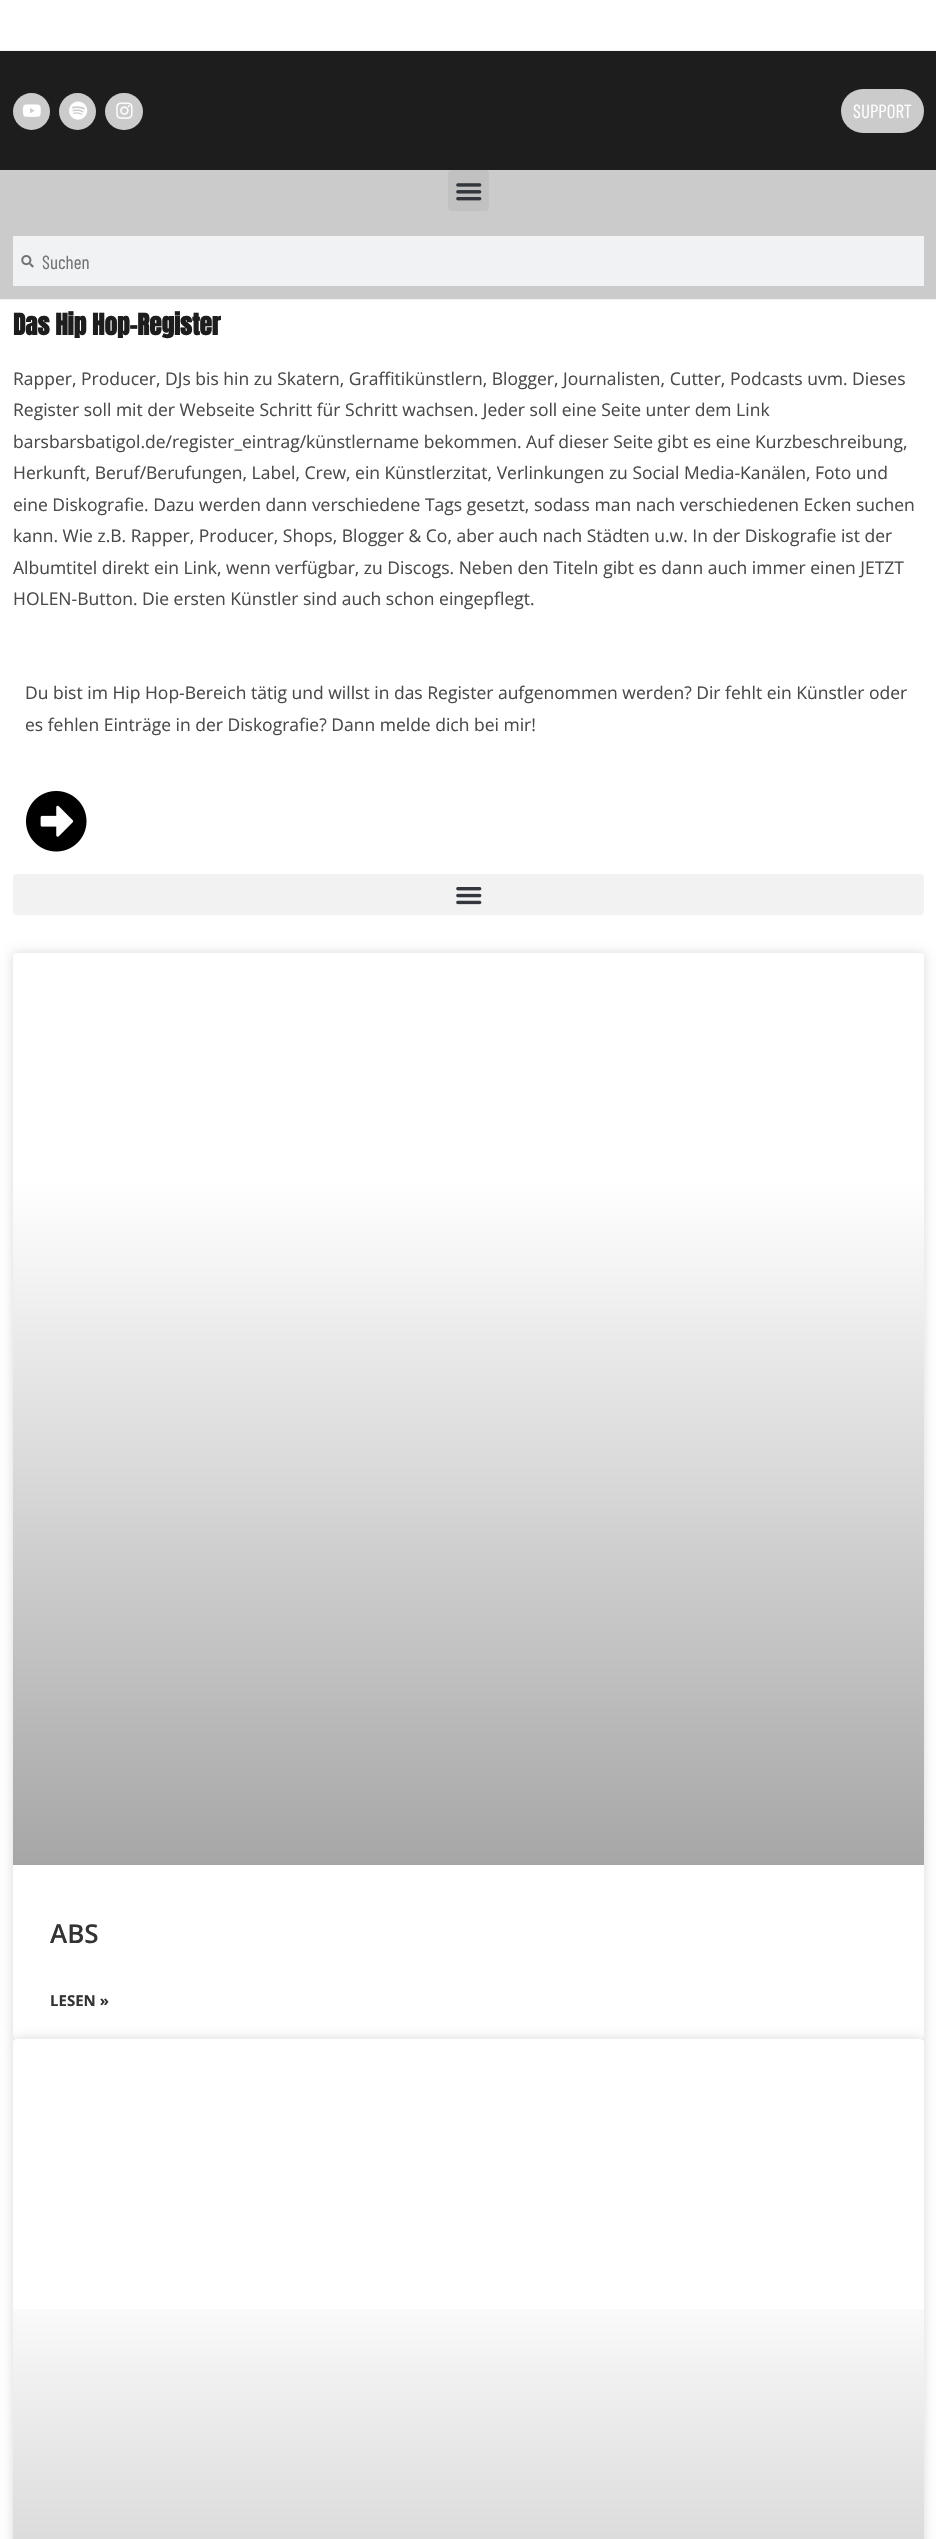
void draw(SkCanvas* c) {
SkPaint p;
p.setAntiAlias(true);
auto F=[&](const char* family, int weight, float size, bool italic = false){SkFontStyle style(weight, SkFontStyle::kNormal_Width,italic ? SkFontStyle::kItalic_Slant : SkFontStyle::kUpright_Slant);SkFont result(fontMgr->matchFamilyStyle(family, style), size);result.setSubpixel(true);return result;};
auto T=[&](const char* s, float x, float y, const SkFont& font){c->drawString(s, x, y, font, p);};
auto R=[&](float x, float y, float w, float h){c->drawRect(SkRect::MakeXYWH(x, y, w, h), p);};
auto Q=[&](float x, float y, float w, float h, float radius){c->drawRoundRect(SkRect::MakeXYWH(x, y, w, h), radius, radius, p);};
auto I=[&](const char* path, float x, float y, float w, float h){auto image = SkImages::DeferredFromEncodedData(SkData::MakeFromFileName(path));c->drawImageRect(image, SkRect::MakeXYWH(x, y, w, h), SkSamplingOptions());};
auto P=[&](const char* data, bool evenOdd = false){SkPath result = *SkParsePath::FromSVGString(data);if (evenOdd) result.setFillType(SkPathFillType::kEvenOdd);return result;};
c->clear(0xffffffff);
p.setColor(0xfff1f1f1);
R(0,50,936,1);
R(0,299,936,1);
p.setColor(0xff1d1d1d);
R(0,51,936,119);
p.setColor(0xffcbcbcb);
c->drawCircle(31.5,111.5,18.5,p);
I("1.png",23,104,18,13);
c->drawCircle(77.5,111.5,18.5,p);
I("2.png",69,101,19,19);
Q(105,93,38,37,18.5);
I("3.png",116,102,17,17);
Q(841,89,83,44,22);
auto f1 = F("Barlow Condensed",400,19);
p.setColor(0xffffffff);
T("SUPPORT",853,118,f1);
p.setColor(0xffcbcbcb);
R(0,170,936,129);
p.setColor(0xffc1c1c1);
Q(448,170,41,41,4);
I("4.png",456,183,26,18);
p.setColor(0xfff1f2f3);
R(13,236,911,50);
I("5.png",21,255,13,13);
p.setColor(0xff727273);
T("Suchen",42,269,f1);
auto f2 = F("Anton",700,25);
p.setColor(0xff1d1d1d);
T("Das Hip Hop-Register",13,335,f2);
auto f3 = F("Open Sans",400,17.5);
p.setColor(0xff4a4a4a);
T("Rapper, Producer, DJs bis hin zu Skatern, Graffitikünstlern, Blogger, Journalisten, Cutter, Podcasts uvm. Dieses",13,385,f3);
T("Register soll mit der Webseite Schritt für Schritt wachsen. Jeder soll eine Seite unter dem Link",13,416,f3);
T("barsbarsbatigol.de/register_eintrag/künstlername bekommen. Auf dieser Seite gibt es eine Kurzbeschreibung,",13,448,f3);
T("Herkunft, Beruf/Berufungen, Label, Crew, ein Künstlerzitat, Verlinkungen zu Social Media-Kanälen, Foto und",13,479,f3);
T("eine Diskografie. Dazu werden dann verschiedene Tags gesetzt, sodass man nach verschiedenen Ecken suchen",13,511,f3);
T("kann. Wie z.B. Rapper, Producer, Shops, Blogger & Co, aber auch nach Städten u.w. In der Diskografie ist der",13,542,f3);
T("Albumtitel direkt ein Link, wenn verfügbar, zu Discogs. Neben den Titeln gibt es dann auch immer einen JETZT",13,574,f3);
T("HOLEN-Button. Die ersten Künstler sind auch schon eingepflegt.",13,605,f3);
T("Du bist im Hip Hop-Bereich tätig und willst in das Register aufgenommen werden? Dir fehlt ein Künstler oder",25,699,f3);
T("es fehlen Einträge in der Diskografie? Dann melde dich bei mir!",25,731,f3);
I("6.png",26,791,61,61);
p.setColor(0xfff2f2f2);
Q(13,874,911,41,4);
I("7.png",456,887,26,18);
p.setColor(0x26000000);
p.setMaskFilter(SkMaskFilter::MakeBlur(kNormal_SkBlurStyle, 6));
c->drawRoundRect(SkRect::MakeXYWH(13,953,911,1086),4,4,p);
p.setMaskFilter(nullptr);
p.setColor(0xffffffff);
Q(13,953,911,1086,4);
{
const SkColor colors[] = {0xffa6a6a6,0xffffffff};
const float stops[] = {0,.75};
const SkPoint ends[] = {{468,1865}, {468,953}};
p.setShader(SkGradientShader::MakeLinear(ends, colors, stops, 2, SkTileMode::kClamp));
p.setAlpha(255);
}
c->drawPath(P("M17 953h903c2 0 4 2 4 4v908h-911v-908c0-2 2-4 4-4z"),p);
auto f4 = F("Open Sans",600,26);
p.setShader(nullptr);
p.setColor(0xff333333);
T("ABS",50,1943,f4);
auto f5 = F("Open Sans",700,15);
T("LESEN »",50,2006,f5);
p.setColor(0x26000000);
p.setMaskFilter(SkMaskFilter::MakeBlur(kNormal_SkBlurStyle, 6));
c->drawRoundRect(SkRect::MakeXYWH(13,2039,911,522),4,4,p);
p.setMaskFilter(nullptr);
p.setColor(0xffffffff);
Q(13,2039,911,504,4);
{
const SkColor colors[] = {0x59000000,0x00000000};
const float stops[] = {0,.75};
const SkPoint ends[] = {{468,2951}, {468,2039}};
p.setShader(SkGradientShader::MakeLinear(ends, colors, stops, 2, SkTileMode::kClamp));
p.setAlpha(255);
}
R(13,2309,911,230);
}
